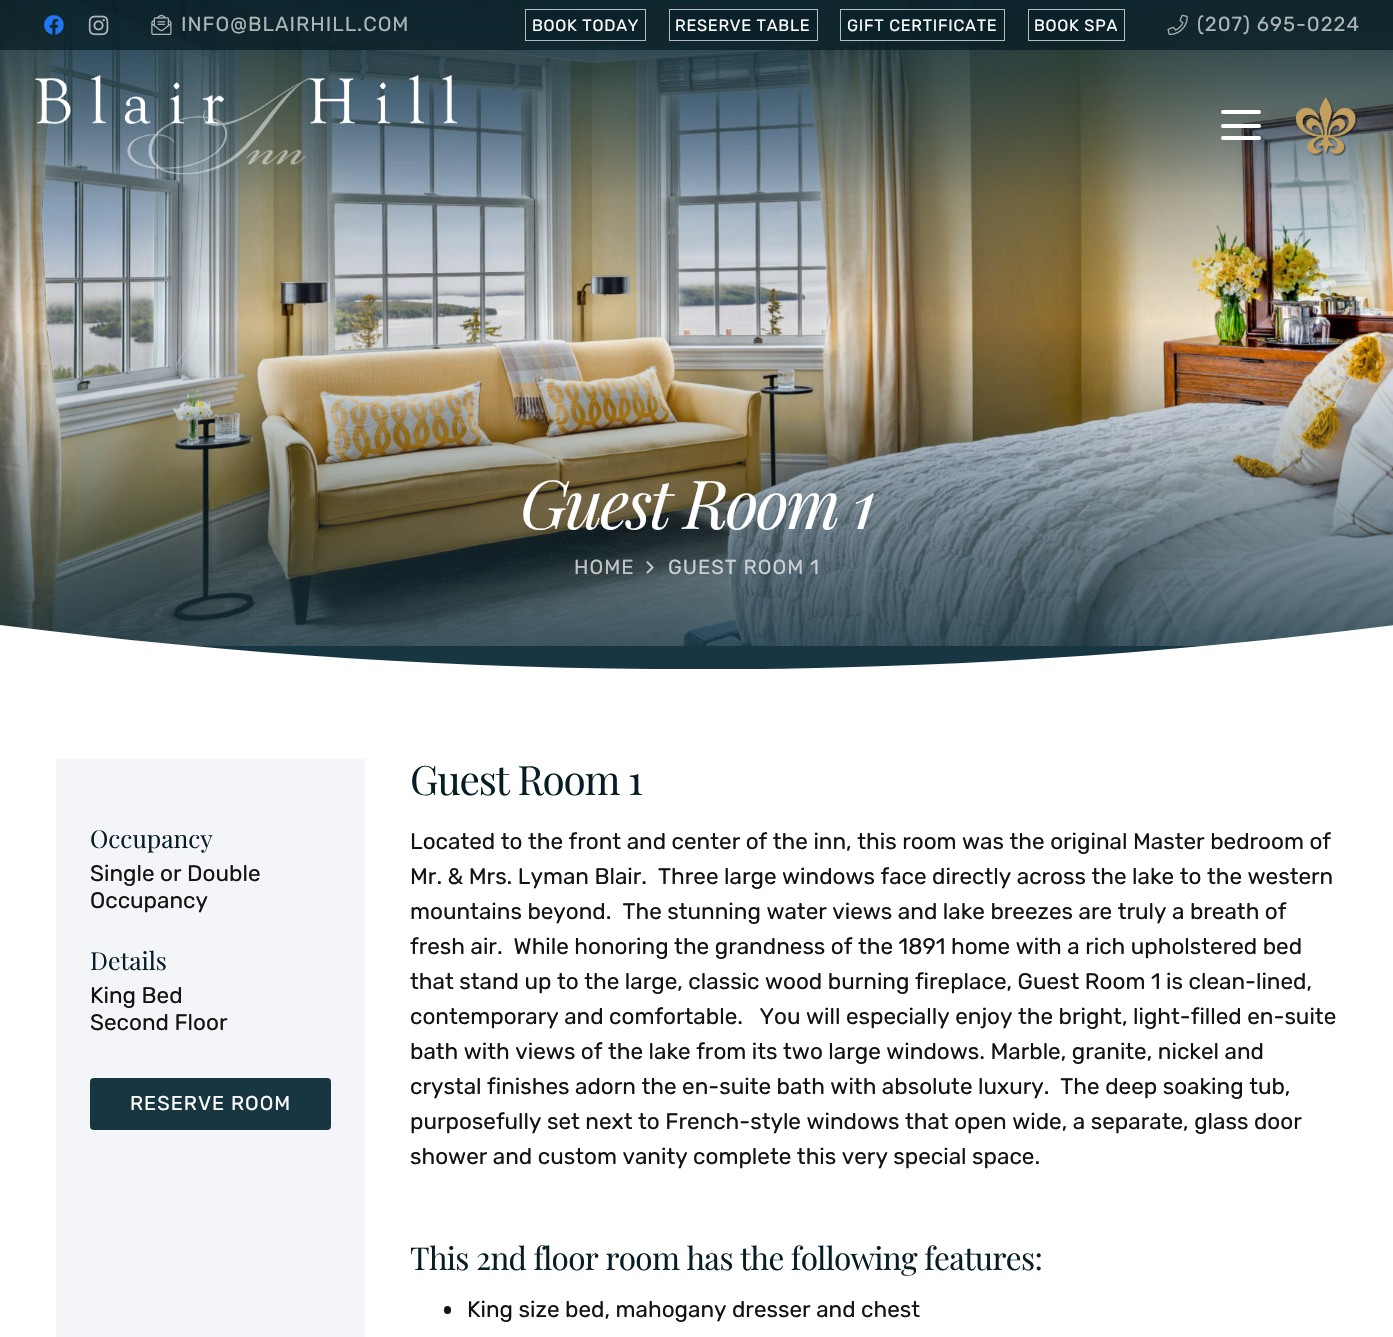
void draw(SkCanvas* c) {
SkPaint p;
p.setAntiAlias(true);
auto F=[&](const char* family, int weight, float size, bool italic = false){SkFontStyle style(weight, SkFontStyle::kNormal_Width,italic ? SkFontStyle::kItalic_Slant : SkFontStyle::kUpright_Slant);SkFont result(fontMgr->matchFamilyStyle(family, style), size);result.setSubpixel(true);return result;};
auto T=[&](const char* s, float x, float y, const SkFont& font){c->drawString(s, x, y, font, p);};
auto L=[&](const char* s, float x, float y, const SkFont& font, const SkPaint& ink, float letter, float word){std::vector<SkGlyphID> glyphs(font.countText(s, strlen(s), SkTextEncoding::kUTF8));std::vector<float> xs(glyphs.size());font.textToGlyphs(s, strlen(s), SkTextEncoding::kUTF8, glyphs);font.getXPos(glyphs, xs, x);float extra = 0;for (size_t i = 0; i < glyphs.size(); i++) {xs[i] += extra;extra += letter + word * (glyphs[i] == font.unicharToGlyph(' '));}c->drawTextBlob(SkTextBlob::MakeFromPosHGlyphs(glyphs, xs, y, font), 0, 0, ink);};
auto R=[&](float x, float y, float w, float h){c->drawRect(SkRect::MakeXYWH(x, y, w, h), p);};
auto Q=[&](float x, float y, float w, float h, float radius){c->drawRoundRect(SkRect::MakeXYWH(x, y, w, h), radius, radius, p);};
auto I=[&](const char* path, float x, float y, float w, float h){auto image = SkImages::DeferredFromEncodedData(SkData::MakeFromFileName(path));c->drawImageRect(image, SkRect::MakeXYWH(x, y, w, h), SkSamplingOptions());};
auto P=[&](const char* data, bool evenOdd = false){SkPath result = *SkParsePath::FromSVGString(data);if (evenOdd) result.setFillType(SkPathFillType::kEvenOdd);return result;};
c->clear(0xffffffff);
I("7.png",0,0,1393,646);
{
const SkColor colors[] = {0xcc183642,0x00183642,0xcc183642};
const float stops[] = {0,.5,1};
const SkPoint ends[] = {{697,0}, {697,646}};
p.setShader(SkGradientShader::MakeLinear(ends, colors, stops, 3, SkTileMode::kClamp));
p.setAlpha(255);
}
R(0,0,1393,646);
p.setShader(nullptr);
p.setColor(0xd9061d26);
R(0,0,1393,50);
I("1.png",44,15,20,20);
I("2.png",88,15,21,21);
I("3.png",151,14,21,21);
auto f1 = F("Rubik",400,20.25);
p.setColor(0xffadb5b8);
L("INFO@BLAIRHILL.COM",181,31,f1,p,1,0);
p.setColor(0x80061d26);
R(526,10,119,30);
p.setStroke(true);
p.setStrokeWidth(1);
p.setColor(0xffb6bcbf);
c->drawRect(SkRect::MakeXYWH(525.5,9.5,120,31),p);
auto f2 = F("Rubik",400,16.25);
p.setStroke(false);
p.setColor(0xffffffff);
L("BOOK TODAY",532,31,f2,p,.75,0);
p.setColor(0xff0a212a);
R(670,10,147,30);
p.setStroke(true);
p.setColor(0xffb6bcbf);
c->drawRect(SkRect::MakeXYWH(669.5,9.5,148,31),p);
p.setStroke(false);
p.setColor(0xffffffff);
L("RESERVE TABLE",675,31,f2,p,.75,0);
p.setColor(0x80061d26);
R(840,9,165,32);
p.setStroke(true);
p.setColor(0xb3ffffff);
c->drawRect(SkRect::MakeXYWH(840.5,9.5,164,31),p);
p.setStroke(false);
p.setColor(0xffffffff);
L("GIFT CERTIFICATE",847,31,f2,p,.75,0);
p.setColor(0x80061d26);
R(1028,9,97,32);
p.setStroke(true);
p.setColor(0xb3ffffff);
c->drawRect(SkRect::MakeXYWH(1028.5,9.5,96,31),p);
p.setStroke(false);
p.setColor(0xffffffff);
L("BOOK SPA",1034,31,f2,p,.75,0);
I("4.png",1167,14,21,21);
p.setColor(0xffadb5b8);
L("(207) 695-0224",1197,31,f1,p,1,0);
{
const SkColor colors[] = {0x80183642,0x00183642};
const float stops[] = {0,1};
const SkPoint ends[] = {{697,50}, {697,200}};
p.setShader(SkGradientShader::MakeLinear(ends, colors, stops, 2, SkTileMode::kClamp));
p.setAlpha(255);
}
R(0,50,1393,144);
I("5.png",35,75,423,100);
p.setShader(nullptr);
p.setColor(0xffffffff);
Q(1221,124,40,4,2);
Q(1221,110,40,4,2);
Q(1221,136,40,4,2);
I("6.png",1296,97,62,59);
auto f3 = F("Playfair Display",400,67.5,true);
L("Guest Room 1",520,529,f3,p,-2.75,0);
p.setColor(0xffc0c4c6);
L("HOME",574,574,f1,p,1,0);
I("8.png",646,561,8,13);
p.setColor(0xffcacfd2);
L("GUEST ROOM 1",668,574,f1,p,1,0);
p.setColor(0xff183642);
R(193,646,1009,23);
p.setColor(0xffffffff);
c->drawPath(P("M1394 670v-45c-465 59-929 59-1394 0v45z"),p);
p.setColor(0xfff3f5f8);
R(56,759,309,578);
auto f4 = F("Playfair Display",400,24.75);
p.setColor(0xff061d26);
T("Occupancy",90,848,f4);
auto f5 = F("Rubik",400,22.5);
p.setColor(0xff121414);
T("Single or Double",90,881,f5);
T("Occupancy",90,908,f5);
p.setColor(0xff061d26);
T("Details",90,970,f4);
p.setColor(0xff121414);
T("King Bed",90,1003,f5);
T("Second Floor",90,1030,f5);
p.setColor(0xff183642);
Q(90,1078,241,52,4);
auto f6 = F("Rubik",400,20);
p.setColor(0xffffffff);
L("RESERVE ROOM",130,1110,f6,p,1,0);
auto f7 = F("Playfair Display",400,40.5);
p.setColor(0xff061d26);
L("Guest Room 1",410,795,f7,p,-1.25,0);
p.setColor(0xff121414);
T("Located to the front and center of the inn, this room was the original Master bedroom of",410,849,f5);
T("Mr. & Mrs. Lyman Blair.  Three large windows face directly across the lake to the western",410,884,f5);
T("mountains beyond.  The stunning water views and lake breezes are truly a breath of",410,919,f5);
T("fresh air.  While honoring the grandness of the 1891 home with a rich upholstered bed",410,954,f5);
T("that stand up to the large, classic wood burning fireplace, Guest Room 1 is clean-lined,",410,989,f5);
T("contemporary and comfortable.   You will especially enjoy the bright, light-filled en-suite",410,1024,f5);
T("bath with views of the lake from its two large windows. Marble, granite, nickel and",410,1059,f5);
T("crystal finishes adorn the en-suite bath with absolute luxury.  The deep soaking tub,",410,1094,f5);
T("purposefully set next to French-style windows that open wide, a separate, glass door",410,1129,f5);
T("shower and custom vanity complete this very special space.",410,1164,f5);
auto f8 = F("Playfair Display",400,31.5);
p.setColor(0xff061d26);
L("This 2nd floor room has the following features:",410,1270,f8,p,-.65,0);
p.setColor(0xff121414);
Q(444,1306,7,8,3.5);
T("King size bed, mahogany dresser and chest",467,1317,f5);
}
